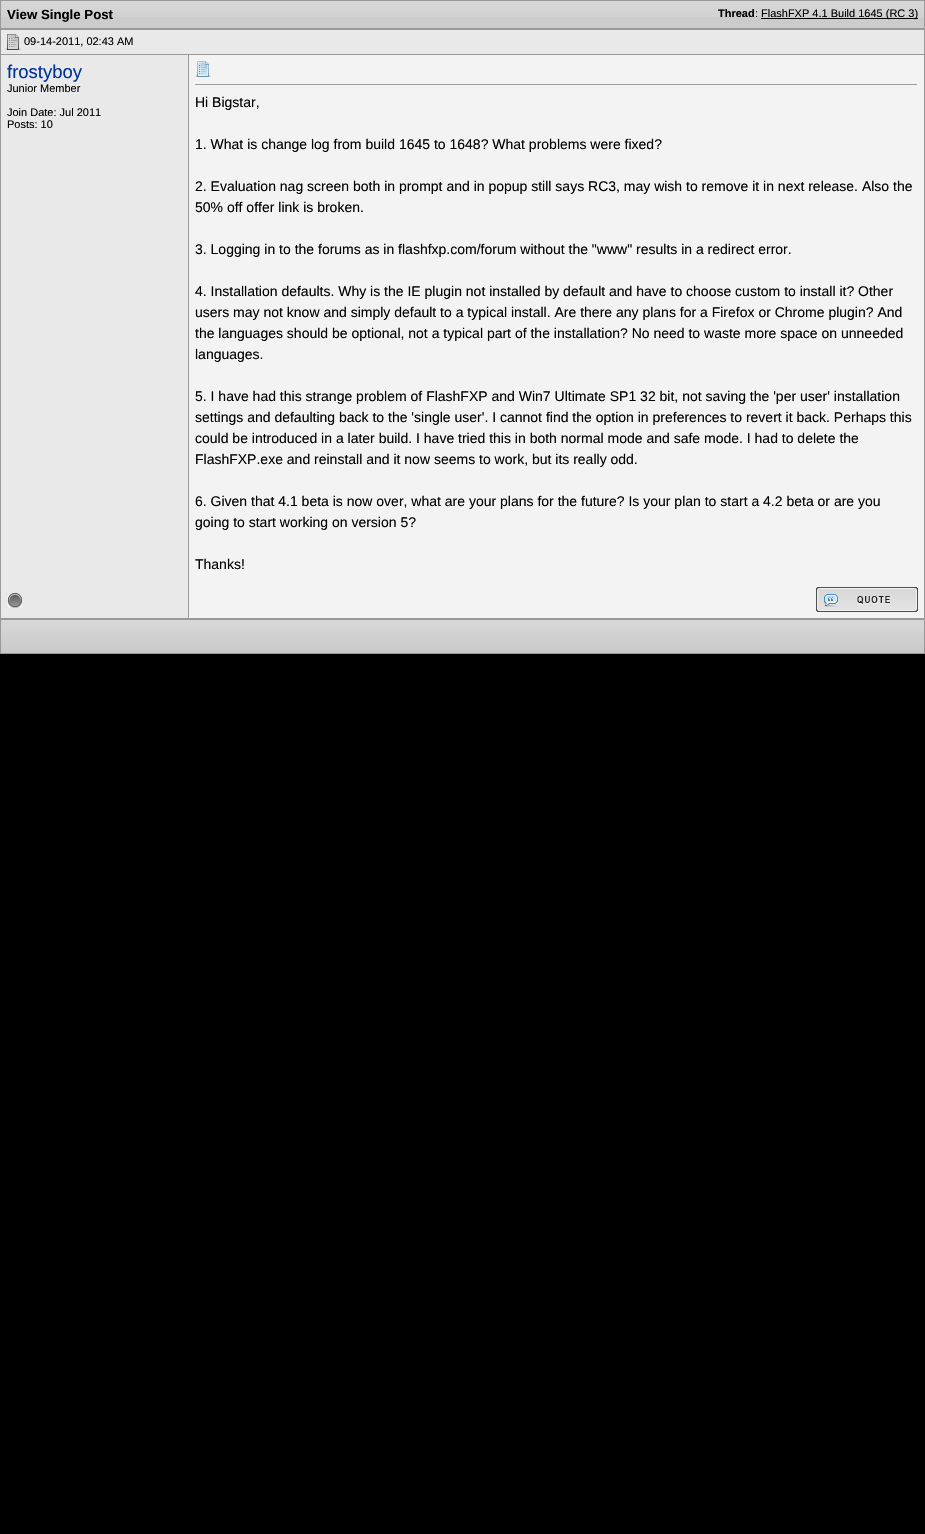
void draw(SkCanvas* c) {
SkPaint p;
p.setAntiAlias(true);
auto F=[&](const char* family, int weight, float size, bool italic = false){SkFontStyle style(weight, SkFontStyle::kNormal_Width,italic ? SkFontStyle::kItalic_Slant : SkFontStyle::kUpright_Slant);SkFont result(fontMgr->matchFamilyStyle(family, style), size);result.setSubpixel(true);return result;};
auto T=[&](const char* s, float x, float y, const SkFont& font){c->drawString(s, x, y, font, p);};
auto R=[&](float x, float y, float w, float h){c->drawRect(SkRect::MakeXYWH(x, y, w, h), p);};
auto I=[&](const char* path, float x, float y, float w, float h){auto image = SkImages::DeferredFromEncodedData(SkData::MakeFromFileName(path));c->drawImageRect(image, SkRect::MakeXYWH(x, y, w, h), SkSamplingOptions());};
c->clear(0xff000000);
p.setColor(0xff999999);
R(0,0,925,29);
p.setColor(0xffcccccc);
R(1,17,923,11);
I("1.png",1,1,923,16);
auto f1 = F("Liberation Sans",700,13.25);
p.setColor(0xff000000);
T("View Single Post",7,19,f1);
auto f2 = F("Liberation Sans",700,11);
T("Thread",718,17,f2);
auto f3 = F("Liberation Sans",400,11);
T(":",755,17,f3);
R(761,18,157,1);
T("FlashFXP 4.1 Build 1645 (RC 3)",761,17,f3);
p.setColor(0xffe9e9e9);
R(1,30,923,24);
p.setColor(0xff999999);
R(0,29,925,1);
R(0,54,189,1);
R(0,29,1,552);
I("2.png",5,34,16,16);
p.setColor(0xff000000);
T("09-14-2011, 02:43 AM",24,45,f3);
p.setColor(0xff999999);
R(924,29,1,590);
R(189,54,736,1);
p.setColor(0xffe9e9e9);
R(1,55,187,563);
p.setColor(0xff999999);
R(188,55,1,564);
auto f4 = F("Liberation Sans",400,18.5);
p.setColor(0xff003399);
T("frostyboy",7,78,f4);
p.setColor(0xff000000);
T("Junior Member",7,92,f3);
T("Join Date: Jul 2011",7,116,f3);
T("Posts: 10",7,128,f3);
p.setColor(0xfff3f3f3);
R(189,55,735,563);
I("3.png",195,61,16,16);
p.setColor(0xff9f9f9f);
R(195,84,723,1);
p.setColor(0xffeeeeee);
R(917,84,1,1);
auto f5 = F("Liberation Sans",400,14);
p.setColor(0xff000000);
T("Hi Bigstar,",195,107,f5);
T("1. What is change log from build 1645 to 1648? What problems were fixed?",195,149,f5);
T("2. Evaluation nag screen both in prompt and in popup still says RC3, may wish to remove it in next release. Also the",195,191,f5);
T("50% off offer link is broken.",195,212,f5);
T("3. Logging in to the forums as in flashfxp.com/forum without the \"www\" results in a redirect error.",195,254,f5);
T("4. Installation defaults. Why is the IE plugin not installed by default and have to choose custom to install it? Other",195,296,f5);
T("users may not know and simply default to a typical install. Are there any plans for a Firefox or Chrome plugin? And",195,317,f5);
T("the languages should be optional, not a typical part of the installation? No need to waste more space on unneeded",195,338,f5);
T("languages.",195,359,f5);
T("5. I have had this strange problem of FlashFXP and Win7 Ultimate SP1 32 bit, not saving the 'per user' installation",195,401,f5);
T("settings and defaulting back to the 'single user'. I cannot find the option in preferences to revert it back. Perhaps this",195,422,f5);
T("could be introduced in a later build. I have tried this in both normal mode and safe mode. I had to delete the",195,443,f5);
T("FlashFXP.exe and reinstall and it now seems to work, but its really odd.",195,464,f5);
T("6. Given that 4.1 beta is now over, what are your plans for the future? Is your plan to start a 4.2 beta or are you",195,506,f5);
T("going to start working on version 5?",195,527,f5);
T("Thanks!",195,569,f5);
p.setColor(0xff999999);
R(0,618,925,36);
R(0,581,1,38);
I("4.png",7,593,16,15);
I("5.png",816,587,102,25);
I("6.png",1,620,923,33);
}
